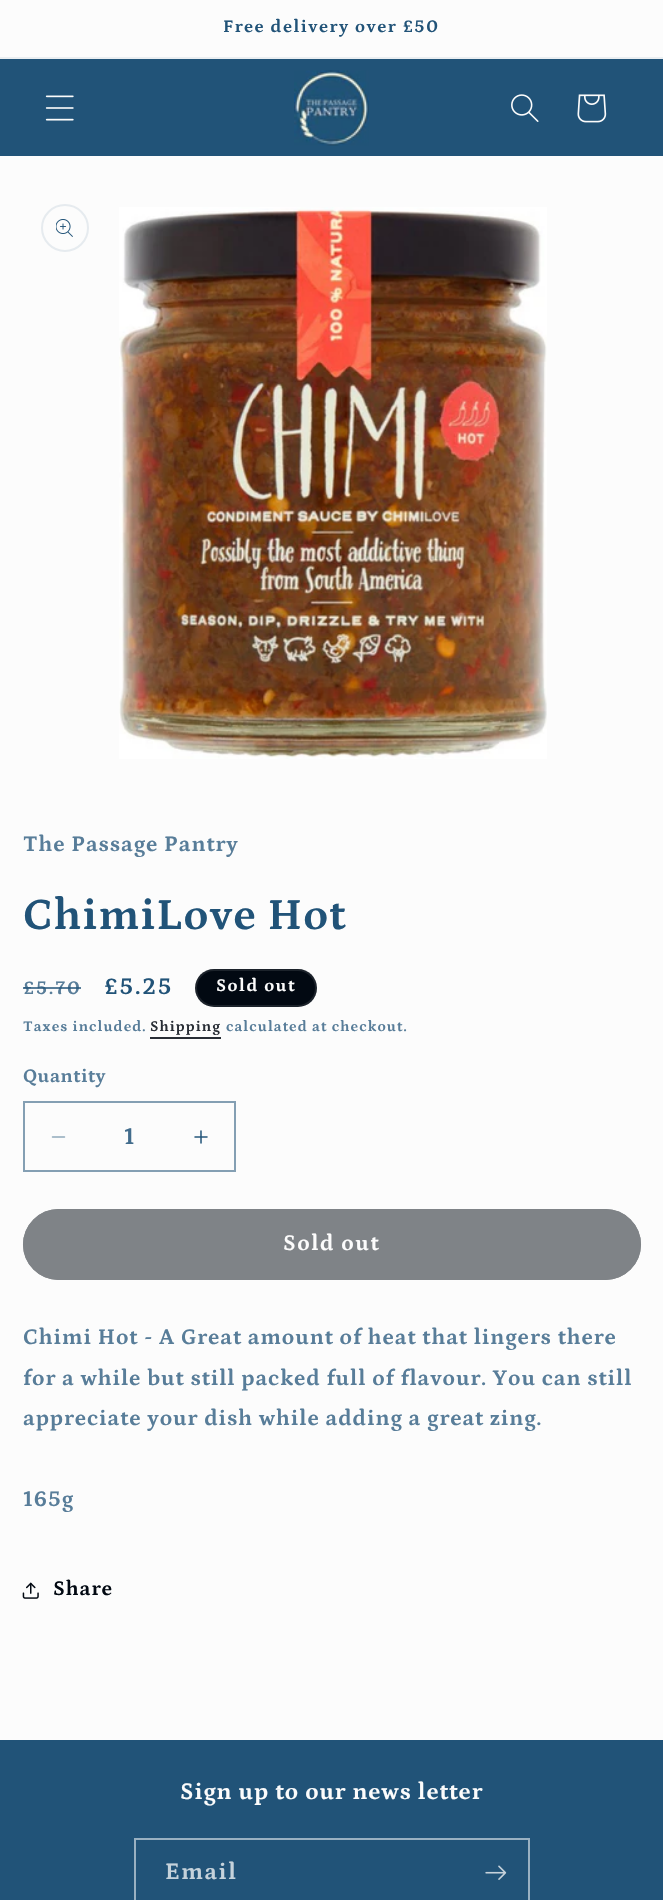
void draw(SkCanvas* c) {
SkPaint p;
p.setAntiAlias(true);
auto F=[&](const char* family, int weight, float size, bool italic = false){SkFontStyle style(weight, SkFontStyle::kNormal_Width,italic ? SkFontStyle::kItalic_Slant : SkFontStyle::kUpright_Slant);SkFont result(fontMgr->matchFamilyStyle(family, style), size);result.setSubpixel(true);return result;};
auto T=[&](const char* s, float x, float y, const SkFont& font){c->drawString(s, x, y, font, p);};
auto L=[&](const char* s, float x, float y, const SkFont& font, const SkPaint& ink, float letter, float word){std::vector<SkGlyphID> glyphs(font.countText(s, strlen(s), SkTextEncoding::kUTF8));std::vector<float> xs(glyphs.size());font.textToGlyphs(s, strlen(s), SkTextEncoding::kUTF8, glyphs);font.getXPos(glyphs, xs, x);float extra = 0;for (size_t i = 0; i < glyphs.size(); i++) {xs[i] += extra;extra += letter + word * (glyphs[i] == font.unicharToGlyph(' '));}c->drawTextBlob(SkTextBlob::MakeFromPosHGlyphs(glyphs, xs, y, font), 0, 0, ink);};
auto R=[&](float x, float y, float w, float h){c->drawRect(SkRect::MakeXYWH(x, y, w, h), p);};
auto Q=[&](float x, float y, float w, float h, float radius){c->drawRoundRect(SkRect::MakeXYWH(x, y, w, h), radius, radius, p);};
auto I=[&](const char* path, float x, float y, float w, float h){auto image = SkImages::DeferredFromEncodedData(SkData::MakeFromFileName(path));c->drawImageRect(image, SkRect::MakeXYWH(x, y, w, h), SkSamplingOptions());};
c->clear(0xfffcfcfc);
p.setColor(0xffeaeef1);
R(0,57,663,2);
auto f1 = F("Petrona",700,18);
p.setColor(0xff215378);
L("Free delivery over £50",223,32,f1,p,1.5,0);
R(0,59,663,97);
I("1.png",45,95,29,26);
I("2.png",294,70,75,76);
I("3.png",511,94,28,28);
I("4.png",577,94,30,29);
p.setStroke(true);
p.setStrokeWidth(2);
p.setColor(0xffe6ebef);
c->drawCircle(65,228,23,p);
I("5.png",56,219,17,18);
I("6.png",119,207,428,552);
auto f2 = F("Petrona",700,22.5);
p.setStroke(false);
p.setColor(0xff587d99);
L("The Passage Pantry",23,851,f2,p,.9,0);
auto f3 = F("Petrona",700,45);
p.setColor(0xff215378);
L("ChimiLove Hot",23,929,f3,p,.9,0);
auto f4 = F("Petrona",700,19.5);
p.setColor(0xff587d99);
L("£5.70",23,994,f4,p,2,0);
p.setColor(0xbf215378);
R(23,987,58,2);
auto f5 = F("Petrona",700,24);
p.setColor(0xff215378);
L("£5.25",104,994,f5,p,2,0);
p.setColor(0xff020912);
Q(195,969,122,38,19);
p.setStroke(true);
p.setColor(0x1afcfcfc);
c->drawRoundRect(SkRect::MakeXYWH(196,970,120,36),18,18,p);
p.setStroke(false);
p.setColor(0xfffcfcfc);
L("Sold out",216,991,f1,p,1.5,0);
auto f6 = F("Petrona",700,15);
p.setColor(0xff587d99);
L("Taxes included.",23,1031,f6,p,1.05,0);
p.setColor(0xff282d35);
L("Shipping",150,1031,f6,p,1.05,0);
R(150,1037,71,2);
p.setColor(0xff587d99);
L("calculated at checkout.",226,1031,f6,p,1.05,0);
L("Quantity",23,1082,f4,p,.5,0);
I("7.png",51,1136,15,2);
I("8.png",194,1130,14,14);
p.setStroke(true);
p.setColor(0xff849fb3);
c->drawRect(SkRect::MakeXYWH(24,1102,211,69),p);
p.setStroke(false);
p.setColor(0xff426c8c);
T("1",124,1144,f5);
p.setColor(0xff7f8387);
Q(23,1209,618,71,35.5);
p.setStroke(true);
c->drawRoundRect(SkRect::MakeXYWH(24,1210,616,69),34.5,34.5,p);
p.setStroke(false);
p.setColor(0xfffcfcfc);
L("Sold out",283,1250,f2,p,1.5,0);
p.setColor(0xff587d99);
L("Chimi Hot - A Great amount of heat that lingers there",23,1344,f2,p,.9,0);
L("for a while but still packed full of flavour. You can still",23,1385,f2,p,.9,0);
L("appreciate your dish while adding a great zing.",23,1425,f2,p,.9,0);
L("165g",23,1506,f2,p,.9,0);
I("9.png",22,1582,17,17);
auto f7 = F("Petrona",700,21);
p.setColor(0xff020912);
L("Share",53,1595,f7,p,.9,0);
p.setColor(0xff215378);
R(0,1740,663,160);
p.setColor(0xfffcfcfc);
L("Sign up to our news letter",180,1799,f5,p,.9,0);
p.setStroke(true);
p.setColor(0xff99b0c1);
c->drawRect(SkRect::MakeXYWH(135,1839,394,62),p);
p.setStroke(false);
p.setColor(0xffc5d2db);
L("Email",165,1879,f5,p,1.5,0);
I("10.png",485,1865,22,15);
}
